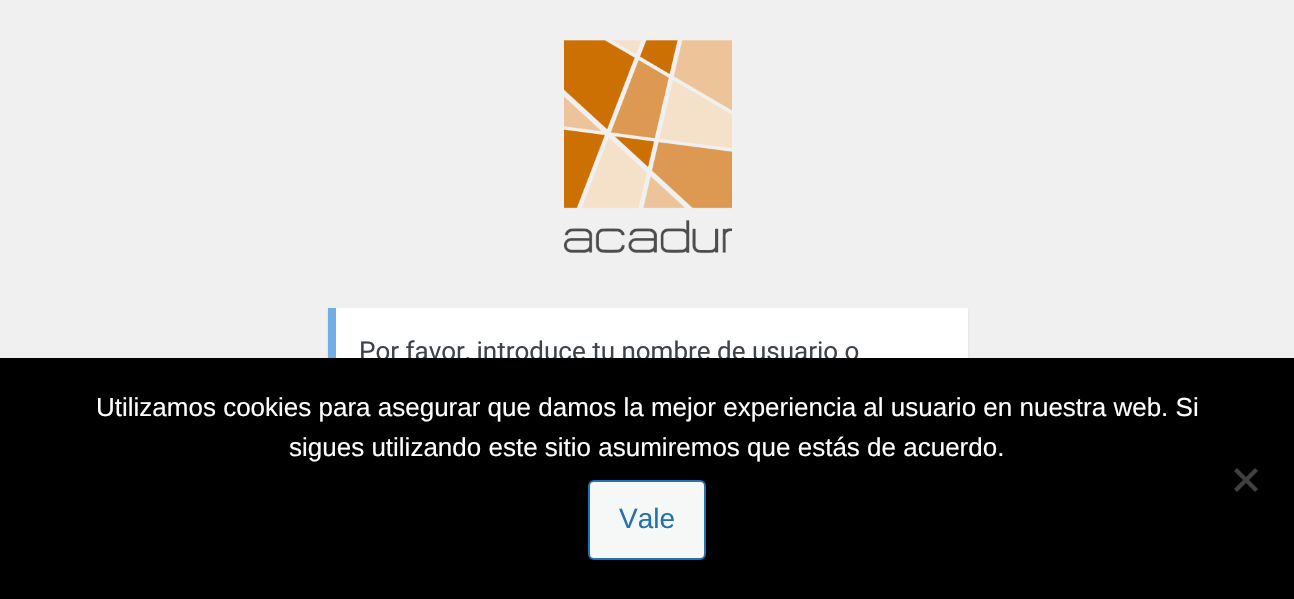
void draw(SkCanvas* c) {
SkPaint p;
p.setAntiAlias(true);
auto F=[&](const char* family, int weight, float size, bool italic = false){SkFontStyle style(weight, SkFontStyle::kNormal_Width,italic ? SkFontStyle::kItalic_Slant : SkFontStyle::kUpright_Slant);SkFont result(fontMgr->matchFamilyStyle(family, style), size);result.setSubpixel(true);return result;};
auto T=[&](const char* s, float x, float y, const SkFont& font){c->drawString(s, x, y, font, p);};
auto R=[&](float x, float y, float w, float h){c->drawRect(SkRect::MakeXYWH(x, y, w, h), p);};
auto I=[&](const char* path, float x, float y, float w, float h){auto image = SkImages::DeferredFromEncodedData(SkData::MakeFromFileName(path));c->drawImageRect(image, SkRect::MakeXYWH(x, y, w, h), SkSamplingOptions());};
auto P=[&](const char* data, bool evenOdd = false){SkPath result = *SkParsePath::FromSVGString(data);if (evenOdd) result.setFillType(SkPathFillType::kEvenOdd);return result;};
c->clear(0xfff0f0f1);
I("1.png",564,40,168,214);
p.setColor(0x1a000000);
p.setMaskFilter(SkMaskFilter::MakeBlur(kNormal_SkBlurStyle, 1));
c->drawRect(SkRect::MakeXYWH(328,310,640,204),p);
p.setMaskFilter(nullptr);
p.setColor(0xffffffff);
R(336,308,632,50);
p.setColor(0xff72aee6);
R(328,308,8,50);
auto f1 = F("Roboto",400,26);
p.setColor(0xff3c434a);
T("Por favor, introduce tu nombre de usuario o",359,360,f1);
p.setColor(0xff000000);
R(0,358,1294,241);
auto f2 = F("Liberation Sans",400,26);
p.setColor(0xffffffff);
T("Utilizamos cookies para asegurar que damos la mejor experiencia al usuario en nuestra web. Si",96,416,f2);
T("sigues utilizando este sitio asumiremos que estás de acuerdo.",289,456,f2);
p.setColor(0xff404040);
c->drawPath(P("M1255 468l3 3l-21 21l-3-3z"),p);
c->drawPath(P("M1234 471l3-3l21 21l-3 3z"),p);
p.setColor(0xfff6f7f7);
c->drawRoundRect(SkRect::MakeXYWH(589,481,116,78),5,5,p);
p.setStroke(true);
p.setStrokeWidth(2);
p.setColor(0xff2271b1);
c->drawRoundRect(SkRect::MakeXYWH(589,481,116,78),5,5,p);
auto f3 = F("Liberation Sans",400,28);
p.setStroke(false);
T("Vale",619,528,f3);
}
